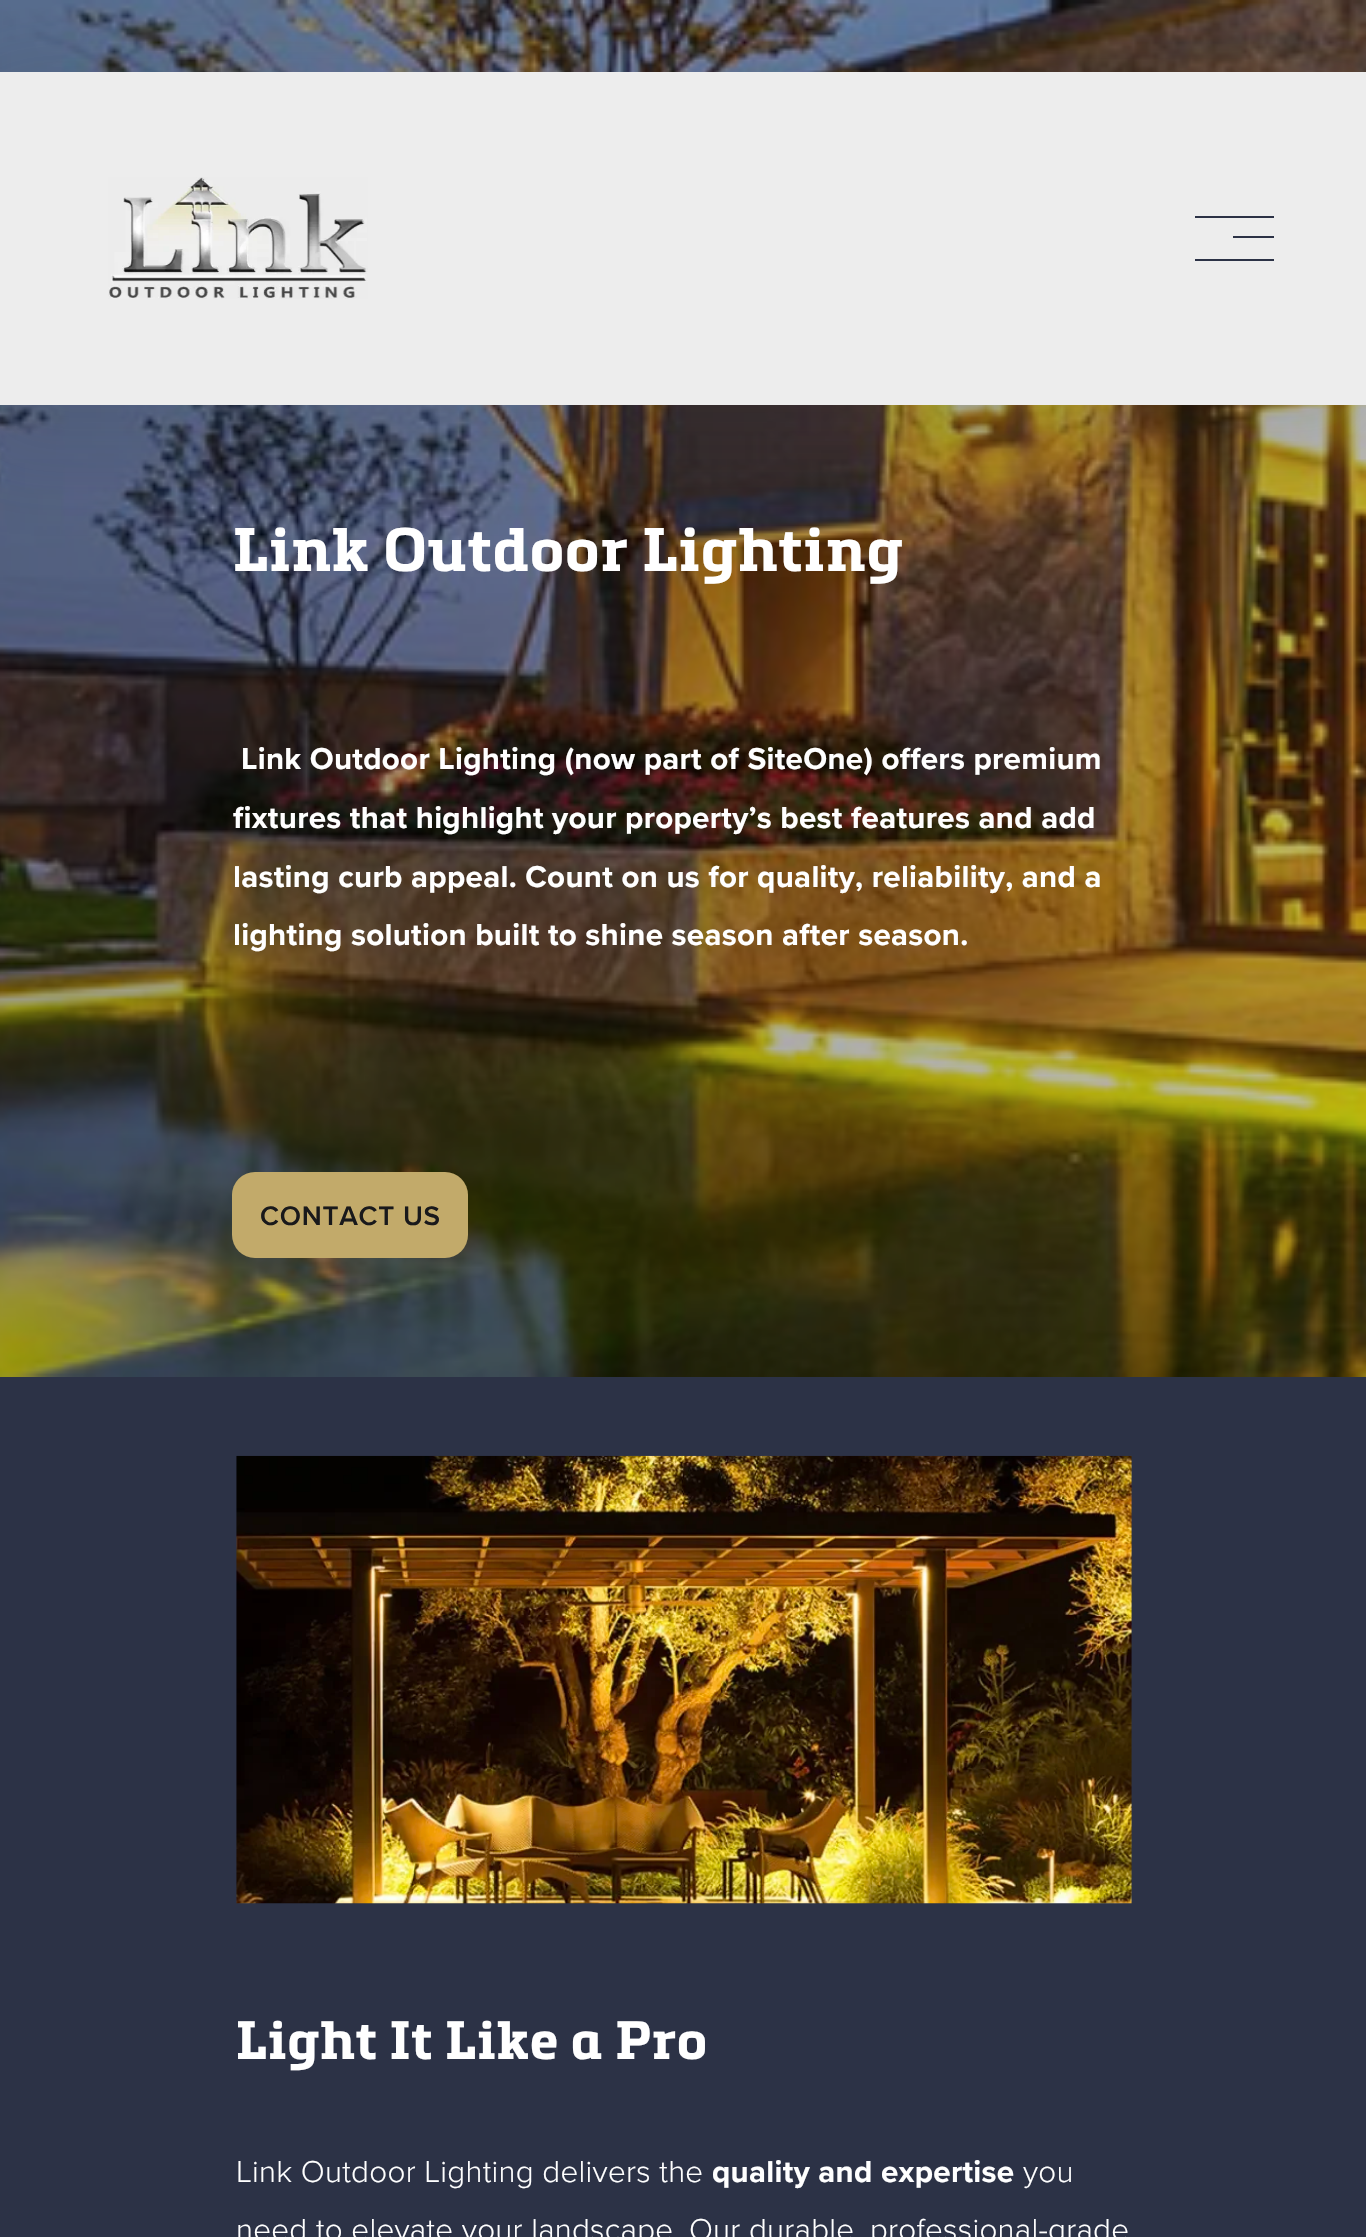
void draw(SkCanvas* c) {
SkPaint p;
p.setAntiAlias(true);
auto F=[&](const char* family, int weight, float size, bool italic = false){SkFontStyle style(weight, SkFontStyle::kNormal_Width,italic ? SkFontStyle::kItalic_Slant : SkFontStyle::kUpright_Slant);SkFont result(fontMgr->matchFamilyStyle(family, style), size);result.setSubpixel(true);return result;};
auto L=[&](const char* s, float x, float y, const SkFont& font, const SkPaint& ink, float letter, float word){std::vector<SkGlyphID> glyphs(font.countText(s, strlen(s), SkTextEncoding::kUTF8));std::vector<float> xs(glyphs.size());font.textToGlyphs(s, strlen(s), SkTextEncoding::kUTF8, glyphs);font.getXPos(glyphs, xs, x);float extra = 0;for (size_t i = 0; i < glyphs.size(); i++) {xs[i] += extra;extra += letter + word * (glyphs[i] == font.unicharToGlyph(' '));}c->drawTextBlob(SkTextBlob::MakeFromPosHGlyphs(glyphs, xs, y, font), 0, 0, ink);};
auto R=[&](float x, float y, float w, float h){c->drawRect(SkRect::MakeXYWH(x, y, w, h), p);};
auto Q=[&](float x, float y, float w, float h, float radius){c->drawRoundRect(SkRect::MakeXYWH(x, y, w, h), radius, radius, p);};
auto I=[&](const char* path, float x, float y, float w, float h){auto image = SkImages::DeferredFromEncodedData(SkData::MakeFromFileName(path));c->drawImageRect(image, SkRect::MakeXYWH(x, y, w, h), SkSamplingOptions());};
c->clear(0xffffffff);
I("2.png",0,0,1366,1377);
p.setColor(0x2636373e);
p.setMaskFilter(SkMaskFilter::MakeBlur(kNormal_SkBlurStyle, 39.5));
c->drawRect(SkRect::MakeXYWH(-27,72,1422,387),p);
p.setMaskFilter(nullptr);
p.setColor(0xffededed);
R(0,72,1366,333);
I("1.png",108,177,260,122);
p.setColor(0xff2c3246);
R(1195,216,79,2);
R(1233,236,41,2);
R(1195,259,79,2);
auto f1 = F("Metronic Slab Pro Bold",700,60.5);
p.setColor(0xffffffff);
L("Link Outdoor Lighting",233,571,f1,p,1.25,0);
auto f2 = F("Proxima Nova",700,31.3);
L("Link Outdoor Lighting (now part of SiteOne) offers premium",241,769,f2,p,.3,0);
L("fixtures that highlight your property’s best features and add",233,828,f2,p,.3,0);
L("lasting curb appeal. Count on us for quality, reliability, and a",233,887,f2,p,.3,0);
L("lighting solution built to shine season after season.",233,945,f2,p,.3,0);
p.setColor(0xffc2aa6a);
Q(232,1172,236,86,23);
auto f3 = F("Proxima Nova",600,27.75);
p.setColor(0xff19191b);
L("CONTACT US",260,1225,f3,p,.75,0);
p.setColor(0xff2c3246);
R(0,1377,1366,860);
I("3.png",236,1455,896,449);
auto f4 = F("Metronic Slab Pro Bold",700,53.25);
p.setColor(0xffffffff);
L("Light It Like a Pro",236,2059,f4,p,1.1,0);
auto f5 = F("Proxima Nova",300,31.3);
L("Link Outdoor Lighting delivers the",236,2182,f5,p,.3,0);
L("quality and expertise",712,2182,f2,p,.3,0);
L("you",1023,2182,f5,p,.3,0);
L("need to elevate your landscape. Our durable, professional-grade",236,2240,f5,p,.3,0);
}
